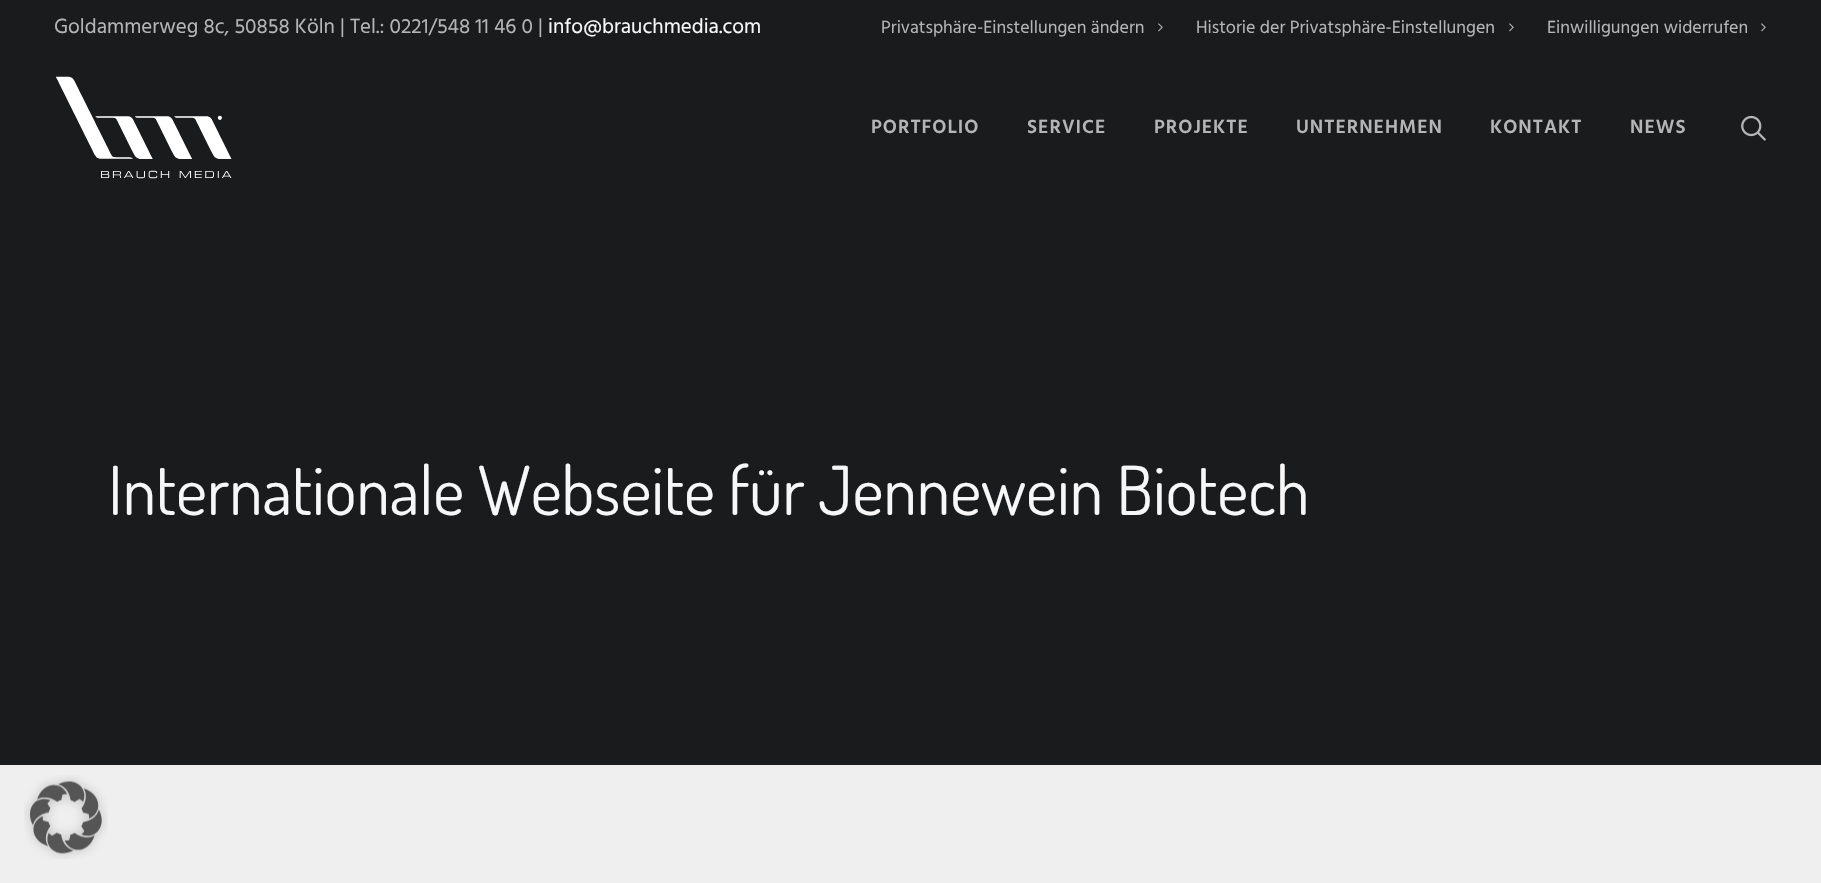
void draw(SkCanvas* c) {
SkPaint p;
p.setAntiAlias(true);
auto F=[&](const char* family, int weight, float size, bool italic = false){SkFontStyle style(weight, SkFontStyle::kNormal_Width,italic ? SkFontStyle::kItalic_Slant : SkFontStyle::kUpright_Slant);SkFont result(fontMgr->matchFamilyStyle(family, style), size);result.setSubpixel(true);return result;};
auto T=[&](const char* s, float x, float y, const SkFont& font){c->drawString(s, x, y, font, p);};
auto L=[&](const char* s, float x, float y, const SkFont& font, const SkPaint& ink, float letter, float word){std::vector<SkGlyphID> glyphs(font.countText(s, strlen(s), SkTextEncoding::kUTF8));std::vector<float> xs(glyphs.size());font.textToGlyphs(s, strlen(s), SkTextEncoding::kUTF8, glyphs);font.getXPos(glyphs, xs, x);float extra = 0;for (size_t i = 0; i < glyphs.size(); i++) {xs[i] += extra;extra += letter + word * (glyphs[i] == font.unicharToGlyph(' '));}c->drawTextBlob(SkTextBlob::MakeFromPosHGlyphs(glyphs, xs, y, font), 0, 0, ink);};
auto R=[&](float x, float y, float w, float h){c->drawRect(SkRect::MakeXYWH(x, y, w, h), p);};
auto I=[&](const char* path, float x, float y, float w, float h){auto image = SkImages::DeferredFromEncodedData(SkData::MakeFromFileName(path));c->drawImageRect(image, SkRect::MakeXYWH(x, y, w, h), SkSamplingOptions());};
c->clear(0xff191b1d);
auto f1 = F("Hind",400,21);
p.setColor(0xffb5b5b5);
T("Goldammerweg 8c, 50858 Köln | Tel.: 0221/548 11 46 0 |",54,33,f1);
p.setColor(0xfff7f7f7);
T("info@brauchmedia.com",548,33,f1);
auto f2 = F("Hind",400,18);
p.setColor(0xffb5b5b5);
T("Privatsphäre-Einstellungen ändern",881,33,f2);
I("1.png",1158,23,5,9);
T("Historie der Privatsphäre-Einstellungen",1196,33,f2);
I("1.png",1509,23,5,9);
T("Einwilligungen widerrufen",1547,33,f2);
I("1.png",1761,23,5,9);
I("2.png",56,76,176,103);
auto f3 = F("Hind",600,19.5);
L("PORTFOLIO",871,133,f3,p,1,0);
L("SERVICE",1027,133,f3,p,1,0);
L("PROJEKTE",1154,133,f3,p,1,0);
L("UNTERNEHMEN",1296,133,f3,p,1,0);
L("KONTAKT",1490,133,f3,p,1,0);
L("NEWS",1630,133,f3,p,1,0);
I("3.png",1741,115,25,26);
auto f4 = F("Dosis",400,67.5);
p.setColor(0xfff7f7f7);
T("Internationale Webseite für Jennewein Biotech",108,515,f4);
p.setColor(0xffefefef);
R(0,765,1821,118);
I("4.png",24,775,84,84);
}
